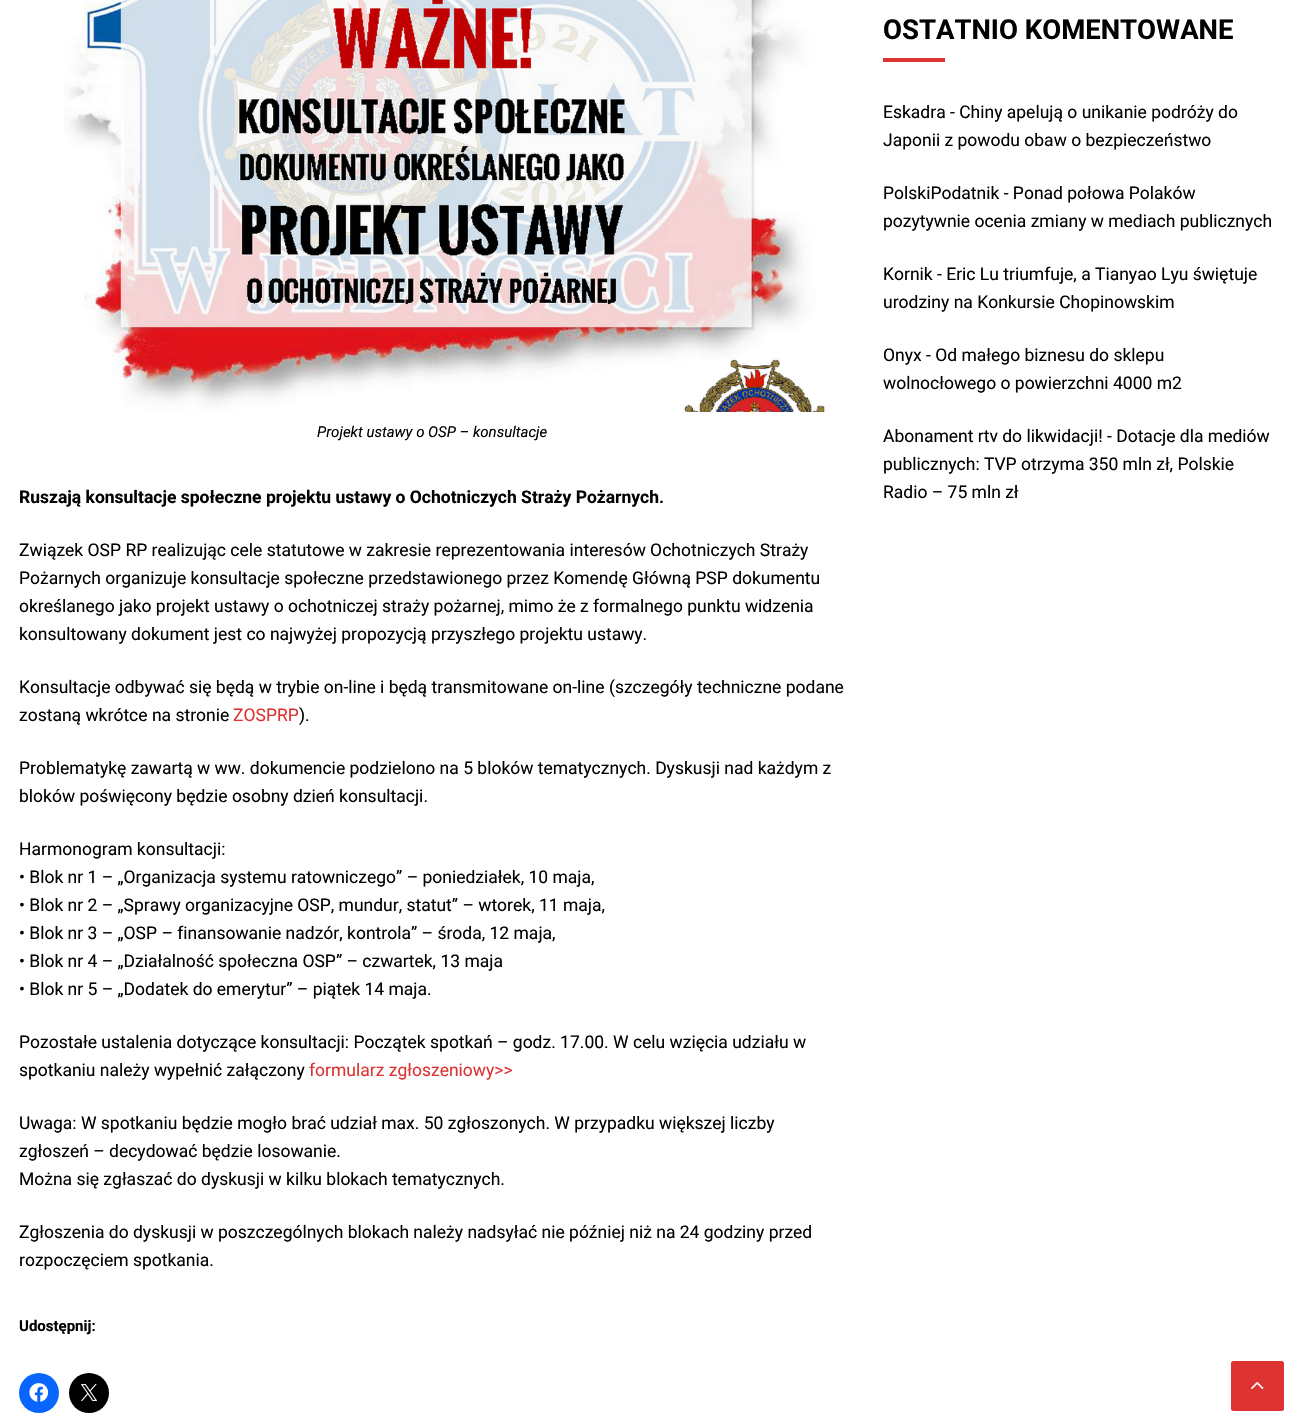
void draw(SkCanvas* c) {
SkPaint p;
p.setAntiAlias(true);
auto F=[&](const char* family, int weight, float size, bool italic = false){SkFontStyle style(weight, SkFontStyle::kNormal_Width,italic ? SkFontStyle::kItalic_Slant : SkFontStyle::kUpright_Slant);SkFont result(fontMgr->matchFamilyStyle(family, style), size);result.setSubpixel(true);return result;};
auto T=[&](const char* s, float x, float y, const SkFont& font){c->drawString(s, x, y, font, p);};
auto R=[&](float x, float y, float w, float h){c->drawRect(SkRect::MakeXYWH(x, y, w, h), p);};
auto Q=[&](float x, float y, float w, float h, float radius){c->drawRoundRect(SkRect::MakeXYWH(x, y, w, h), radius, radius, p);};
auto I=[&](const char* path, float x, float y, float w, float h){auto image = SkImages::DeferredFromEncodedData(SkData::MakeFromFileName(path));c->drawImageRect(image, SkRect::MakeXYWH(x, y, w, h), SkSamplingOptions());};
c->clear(0xffffffff);
auto f1 = F("Roboto",700,27.5);
p.setColor(0xff010101);
T("OSTATNIO KOMENTOWANE",883,39,f1);
p.setColor(0xffdd3333);
R(883,58,62,4);
auto f2 = F("Roboto",400,17.5);
p.setColor(0xff010101);
T("Eskadra - Chiny apelują o unikanie podróży do",883,118,f2);
T("Japonii z powodu obaw o bezpieczeństwo",883,146,f2);
T("PolskiPodatnik - Ponad połowa Polaków",883,199,f2);
T("pozytywnie ocenia zmiany w mediach publicznych",883,227,f2);
T("Kornik - Eric Lu triumfuje, a Tianyao Lyu świętuje",883,280,f2);
T("urodziny na Konkursie Chopinowskim",883,308,f2);
T("Onyx - Od małego biznesu do sklepu",883,361,f2);
T("wolnocłowego o powierzchni 4000 m2",883,389,f2);
T("Abonament rtv do likwidacji!",883,442,f2);
T("- Dotacje dla mediów",1107,442,f2);
T("publicznych: TVP otrzyma 350 mln zł, Polskie",883,470,f2);
T("Radio – 75 mln zł",883,498,f2);
I("1.png",64,0,761,412);
auto f3 = F("Roboto",400,15,true);
T("Projekt ustawy o OSP – konsultacje",317,437,f3);
auto f4 = F("Roboto",700,17.5);
T("Ruszają konsultacje społeczne projektu ustawy o Ochotniczych Straży Pożarnych.",19,503,f4);
T("Związek OSP RP realizując cele statutowe w zakresie reprezentowania interesów Ochotniczych Straży",19,556,f2);
T("Pożarnych organizuje konsultacje społeczne przedstawionego przez Komendę Główną PSP dokumentu",19,584,f2);
T("określanego jako projekt ustawy o ochotniczej straży pożarnej, mimo że z formalnego punktu widzenia",19,612,f2);
T("konsultowany dokument jest co najwyżej propozycją przyszłego projektu ustawy.",19,640,f2);
T("Konsultacje odbywać się będą w trybie on-line i będą transmitowane on-line (szczegóły techniczne podane",19,693,f2);
T("zostaną wkrótce na stronie",19,721,f2);
p.setColor(0xffdd3333);
T("ZOSPRP",233,721,f2);
p.setColor(0xff010101);
T(").",299,721,f2);
T("Problematykę zawartą w ww. dokumencie podzielono na 5 bloków tematycznych. Dyskusji nad każdym z",19,774,f2);
T("bloków poświęcony będzie osobny dzień konsultacji.",19,802,f2);
T("Harmonogram konsultacji:",19,855,f2);
T("• Blok nr 1 – „Organizacja systemu ratowniczego” – poniedziałek, 10 maja,",19,883,f2);
T("• Blok nr 2 – „Sprawy organizacyjne OSP, mundur, statut” – wtorek, 11 maja,",19,911,f2);
T("• Blok nr 3 – „OSP – finansowanie nadzór, kontrola” – środa, 12 maja,",19,939,f2);
T("• Blok nr 4 – „Działalność społeczna OSP” – czwartek, 13 maja",19,967,f2);
T("• Blok nr 5 – „Dodatek do emerytur” – piątek 14 maja.",19,995,f2);
T("Pozostałe ustalenia dotyczące konsultacji: Początek spotkań – godz. 17.00. W celu wzięcia udziału w",19,1048,f2);
T("spotkaniu należy wypełnić załączony",19,1076,f2);
p.setColor(0xffdd3333);
T("formularz zgłoszeniowy>>",309,1076,f2);
p.setColor(0xff010101);
T("Uwaga: W spotkaniu będzie mogło brać udział max. 50 zgłoszonych. W przypadku większej liczby",19,1129,f2);
T("zgłoszeń – decydować będzie losowanie.",19,1157,f2);
T("Można się zgłaszać do dyskusji w kilku blokach tematycznych.",19,1185,f2);
T("Zgłoszenia do dyskusji w poszczególnych blokach należy nadsyłać nie później niż na 24 godziny przed",19,1238,f2);
T("rozpoczęciem spotkania.",19,1266,f2);
auto f5 = F("Roboto",700,15);
T("Udostępnij:",19,1331,f5);
p.setColor(0xff0866ff);
c->drawCircle(39,1393,20,p);
I("2.png",29,1383,20,19);
p.setColor(0xff000000);
c->drawCircle(89,1393,20,p);
I("3.png",80,1384,18,17);
p.setColor(0xffdd3333);
Q(1231,1361,53,50,2.5);
I("4.png",1251,1381,13,9);
}
